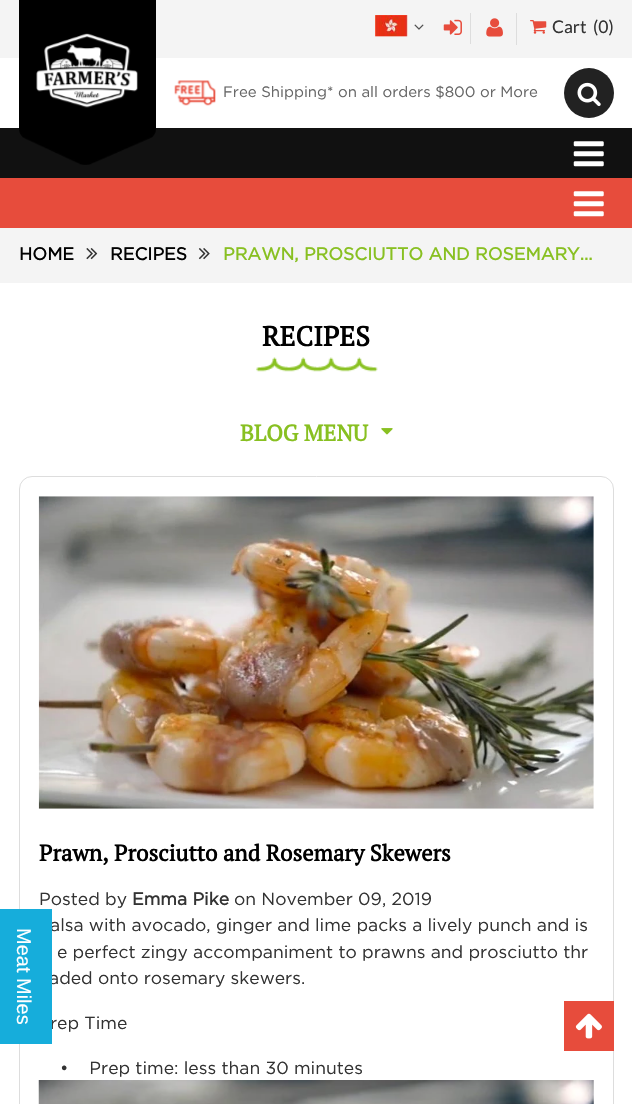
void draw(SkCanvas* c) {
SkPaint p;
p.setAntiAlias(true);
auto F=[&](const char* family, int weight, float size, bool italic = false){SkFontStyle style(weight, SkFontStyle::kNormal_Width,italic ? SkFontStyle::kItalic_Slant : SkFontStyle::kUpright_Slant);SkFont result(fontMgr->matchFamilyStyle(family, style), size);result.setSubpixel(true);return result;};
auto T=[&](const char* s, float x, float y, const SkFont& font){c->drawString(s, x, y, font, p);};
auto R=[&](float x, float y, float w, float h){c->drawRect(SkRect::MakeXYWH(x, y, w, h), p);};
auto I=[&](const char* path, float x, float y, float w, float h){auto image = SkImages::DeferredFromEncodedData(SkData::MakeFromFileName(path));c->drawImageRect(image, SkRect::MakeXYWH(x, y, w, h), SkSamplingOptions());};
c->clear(0xffffffff);
p.setColor(0xfff4f4f4);
R(0,0,632,58);
I("1.png",375,15,33,22);
I("2.png",414,24,10,6);
p.setColor(0xffdddddd);
R(470,13,1,31);
I("3.png",443,19,19,16);
I("4.png",486,18,17,19);
R(516,13,1,32);
I("5.png",530,20,17,14);
auto f1 = F("Lato",400,17.5);
p.setColor(0xff333333);
T("Cart",552,33,f1);
T("(0)",593,33,f1);
p.setColor(0xff111111);
R(0,128,632,50);
I("6.png",19,0,137,165);
I("7.png",36,33,102,75);
I("8.png",174,80,42,26);
auto f2 = F("Gotham",400,15);
p.setColor(0xff666666);
T("Free Shipping* on all orders $800 or More",223,97,f2);
p.setColor(0xff222222);
c->drawCircle(589,93,25,p);
I("9.png",577,82,24,24);
I("10.png",573,141,31,26);
p.setColor(0xffe74c3c);
R(0,178,632,50);
I("11.png",573,191,31,26);
p.setColor(0xfff4f4f4);
R(0,228,632,55);
auto f3 = F("Gotham",700,17.5);
p.setColor(0xff000000);
T("HOME",19,260,f3);
I("12.png",86,248,12,12);
T("RECIPES",110,260,f3);
I("13.png",198,248,12,12);
p.setColor(0xff88c021);
T("PRAWN, PROSCIUTTO AND ROSEMARY...",223,260,f3);
auto f4 = F("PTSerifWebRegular",700,27.5);
p.setColor(0xff000000);
T("RECIPES",262,346,f4);
I("14.png",256,357,122,15);
auto f5 = F("PTSerifWebRegular",700,22.5);
p.setColor(0xff88c021);
T("BLOG MENU",240,441,f5);
I("15.png",381,428,12,7);
p.setStroke(true);
p.setStrokeWidth(1);
p.setColor(0xffdddddd);
c->drawRoundRect(SkRect::MakeXYWH(19.5,476.5,594,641),12.5,12.5,p);
I("16.png",38,496,556,313);
p.setStroke(false);
p.setColor(0xff000000);
T("Prawn, Prosciutto and Rosemary Skewers",39,861,f5);
auto f6 = F("Gotham",400,17.5);
p.setColor(0xff333333);
T("Posted by",39,905,f6);
T("Emma Pike",132,905,f3);
T("on November 09, 2019",234,905,f6);
T("alsa with avocado, ginger and lime packs a lively punch and is",50,931,f6);
T("e perfect zingy accompaniment to prawns and prosciutto thr",57,958,f6);
T("aded onto rosemary skewers.",49,984,f6);
T("rep Time",50,1029,f6);
T("•    Prep time: less than 30 minutes",60,1074,f6);
I("17.png",38,1080,556,24);
p.setColor(0xff16addb);
R(0,909,52,135);
auto f7 = F("Liberation Sans",400,20);
p.setColor(0xffffffff);
c->save();
c->rotate(90,17,928);
T("Meat Miles",17,928,f7);
c->restore();
p.setColor(0xffe74c3c);
R(564,1001,50,50);
I("18.png",575,1013,27,26);
}
